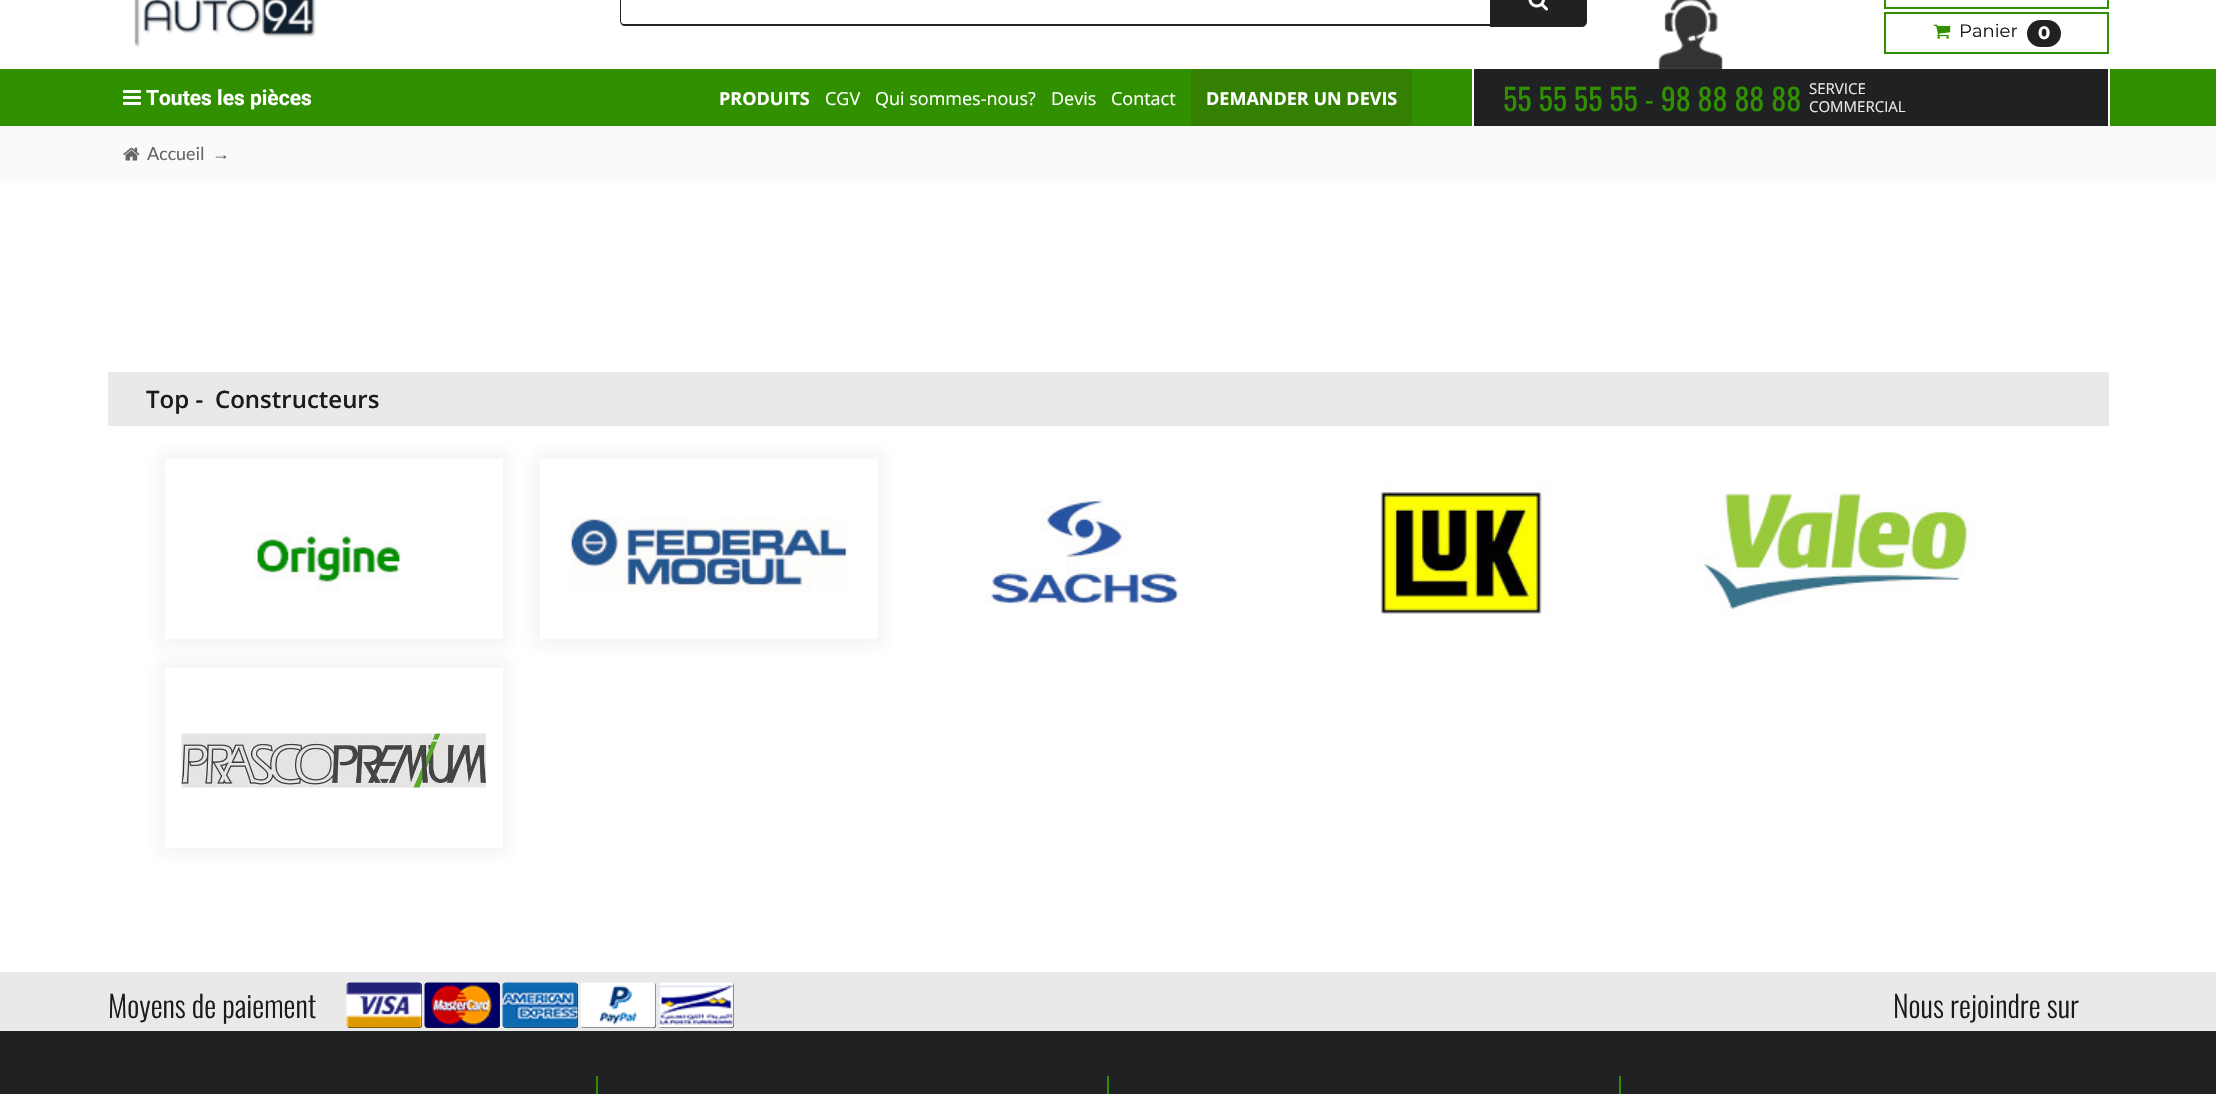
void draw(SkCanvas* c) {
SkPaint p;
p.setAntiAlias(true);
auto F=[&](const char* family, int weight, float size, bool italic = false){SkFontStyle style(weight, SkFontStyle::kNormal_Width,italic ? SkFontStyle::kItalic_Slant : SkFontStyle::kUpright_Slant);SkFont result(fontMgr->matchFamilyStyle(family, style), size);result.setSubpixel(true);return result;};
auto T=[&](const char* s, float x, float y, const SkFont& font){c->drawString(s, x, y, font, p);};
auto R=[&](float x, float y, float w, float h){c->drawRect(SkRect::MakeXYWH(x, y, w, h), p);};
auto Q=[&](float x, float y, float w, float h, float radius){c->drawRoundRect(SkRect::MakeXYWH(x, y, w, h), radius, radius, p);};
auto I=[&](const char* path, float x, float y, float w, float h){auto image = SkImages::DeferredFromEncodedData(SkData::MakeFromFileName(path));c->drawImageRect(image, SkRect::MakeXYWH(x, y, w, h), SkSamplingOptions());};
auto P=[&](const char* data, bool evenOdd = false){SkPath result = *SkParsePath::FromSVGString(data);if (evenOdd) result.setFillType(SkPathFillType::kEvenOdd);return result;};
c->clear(0xffffffff);
I("1.png",134,0,182,48);
p.setColor(0xff202123);
c->drawPath(P("M624-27h866v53h-866c-2 0-4-3-4-5v-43c0-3 2-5 4-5zm0 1h866v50h-866c-2 0-3-1-3-3v-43c0-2 1-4 3-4z",true),p);
c->drawPath(P("M1491-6h91c2 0 4 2 4 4v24c0 2-2 4-4 4h-91z"),p);
p.setStroke(true);
p.setStrokeWidth(2);
c->drawPath(P("M1491-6h91c2 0 4 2 4 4v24c0 2-2 4-4 4h-91z"),p);
I("2.png",1528,0,20,11);
p.setColor(0xff309000);
c->drawRect(SkRect::MakeXYWH(1885,-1,223,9),p);
c->drawRect(SkRect::MakeXYWH(1885,13,223,40),p);
I("3.png",1933,24,18,15);
auto f1 = F("Montserrat",400,18);
p.setStroke(false);
p.setColor(0xff1b1b1b);
T("Panier",1959,37,f1);
p.setColor(0xff202123);
Q(2027,20,34,27,13.5);
auto f2 = F("Montserrat",700,18);
p.setColor(0xffffffff);
T("0",2038,39,f2);
p.setColor(0xff309000);
R(0,69,2216,57);
I("4.png",123,90,18,15);
auto f3 = F("Roboto",700,21);
p.setColor(0xffffffff);
T("Toutes les pièces",146,105,f3);
auto f4 = F("Open Sans",700,18);
T("PRODUITS",719,105,f4);
auto f5 = F("Open Sans",400,18);
T("CGV",825,105,f5);
T("Qui sommes-nous?",875,105,f5);
T("Devis",1051,105,f5);
T("Contact",1111,105,f5);
p.setColor(0xff348002);
R(1191,69,221,57);
p.setColor(0xffffffff);
T("DEMANDER UN DEVIS",1206,105,f4);
p.setColor(0xff202123);
R(1474,69,634,57);
p.setColor(0xffffffff);
R(2108,69,2,57);
R(1472,69,2,57);
I("5.png",1658,0,65,69);
auto f6 = F("Oswald",400,30);
p.setColor(0xff309000);
T("55 55 55 55 - 98 88 88 88",1503,111,f6);
auto f7 = F("Open Sans",400,15);
p.setColor(0xffe9e9e9);
T("SERVICE",1809,94,f7);
T("COMMERCIAL",1809,112,f7);
p.setColor(0xfffafafa);
R(0,126,2216,57);
I("6.png",123,147,17,14);
auto f8 = F("Lato",400,18);
p.setColor(0xff666666);
T("Accueil",147,160,f8);
auto f9 = F("Liberation Sans",400,18);
T("→",212,160,f9);
p.setColor(0xffe9e9e9);
R(108,372,2001,54);
auto f10 = F("Open Sans",600,24);
p.setColor(0xff1b1b1b);
T("Top -",146,408,f10);
T("Constructeurs",215,408,f10);
p.setColor(0x0d1e1e1e);
p.setMaskFilter(SkMaskFilter::MakeBlur(kNormal_SkBlurStyle, 7.5));
c->drawRect(SkRect::MakeXYWH(158,452,352,195),p);
p.setMaskFilter(nullptr);
p.setColor(0xffffffff);
R(165,459,338,180);
I("7.png",254,530,147,62);
p.setColor(0x0d1e1e1e);
p.setMaskFilter(SkMaskFilter::MakeBlur(kNormal_SkBlurStyle, 7.5));
c->drawRect(SkRect::MakeXYWH(533,452,352,195),p);
p.setMaskFilter(nullptr);
p.setColor(0xffffffff);
R(540,459,338,180);
I("8.png",569,518,280,75);
I("9.png",985,494,198,111);
I("10.png",1380,483,170,133);
I("11.png",1695,493,279,123);
p.setColor(0x0d1e1e1e);
p.setMaskFilter(SkMaskFilter::MakeBlur(kNormal_SkBlurStyle, 7.5));
c->drawRect(SkRect::MakeXYWH(158,660,352,195),p);
p.setMaskFilter(nullptr);
p.setColor(0xffffffff);
R(165,668,338,180);
I("12.png",181,733,305,55);
p.setColor(0xffe9e9e9);
R(0,972,2216,59);
auto f11 = F("Oswald",300,30);
p.setColor(0xff1b1b1b);
T("Moyens de paiement",108,1018,f11);
p.setColor(0xff202123);
Q(347,983,75,45,3);
I("13.png",346,982,76,46);
Q(425,983,75,45,3);
I("14.png",424,982,76,46);
Q(503,983,75,45,3);
I("15.png",502,982,76,46);
Q(581,983,75,45,3);
I("16.png",580,982,76,46);
Q(659,983,75,45,3);
I("17.png",658,982,76,46);
p.setColor(0xff1b1b1b);
T("Nous rejoindre sur",1893,1018,f11);
p.setColor(0xff202123);
R(0,1031,2216,63);
p.setColor(0xff309000);
R(596,1076,2,18);
R(1107,1076,2,18);
R(1619,1076,2,18);
}
